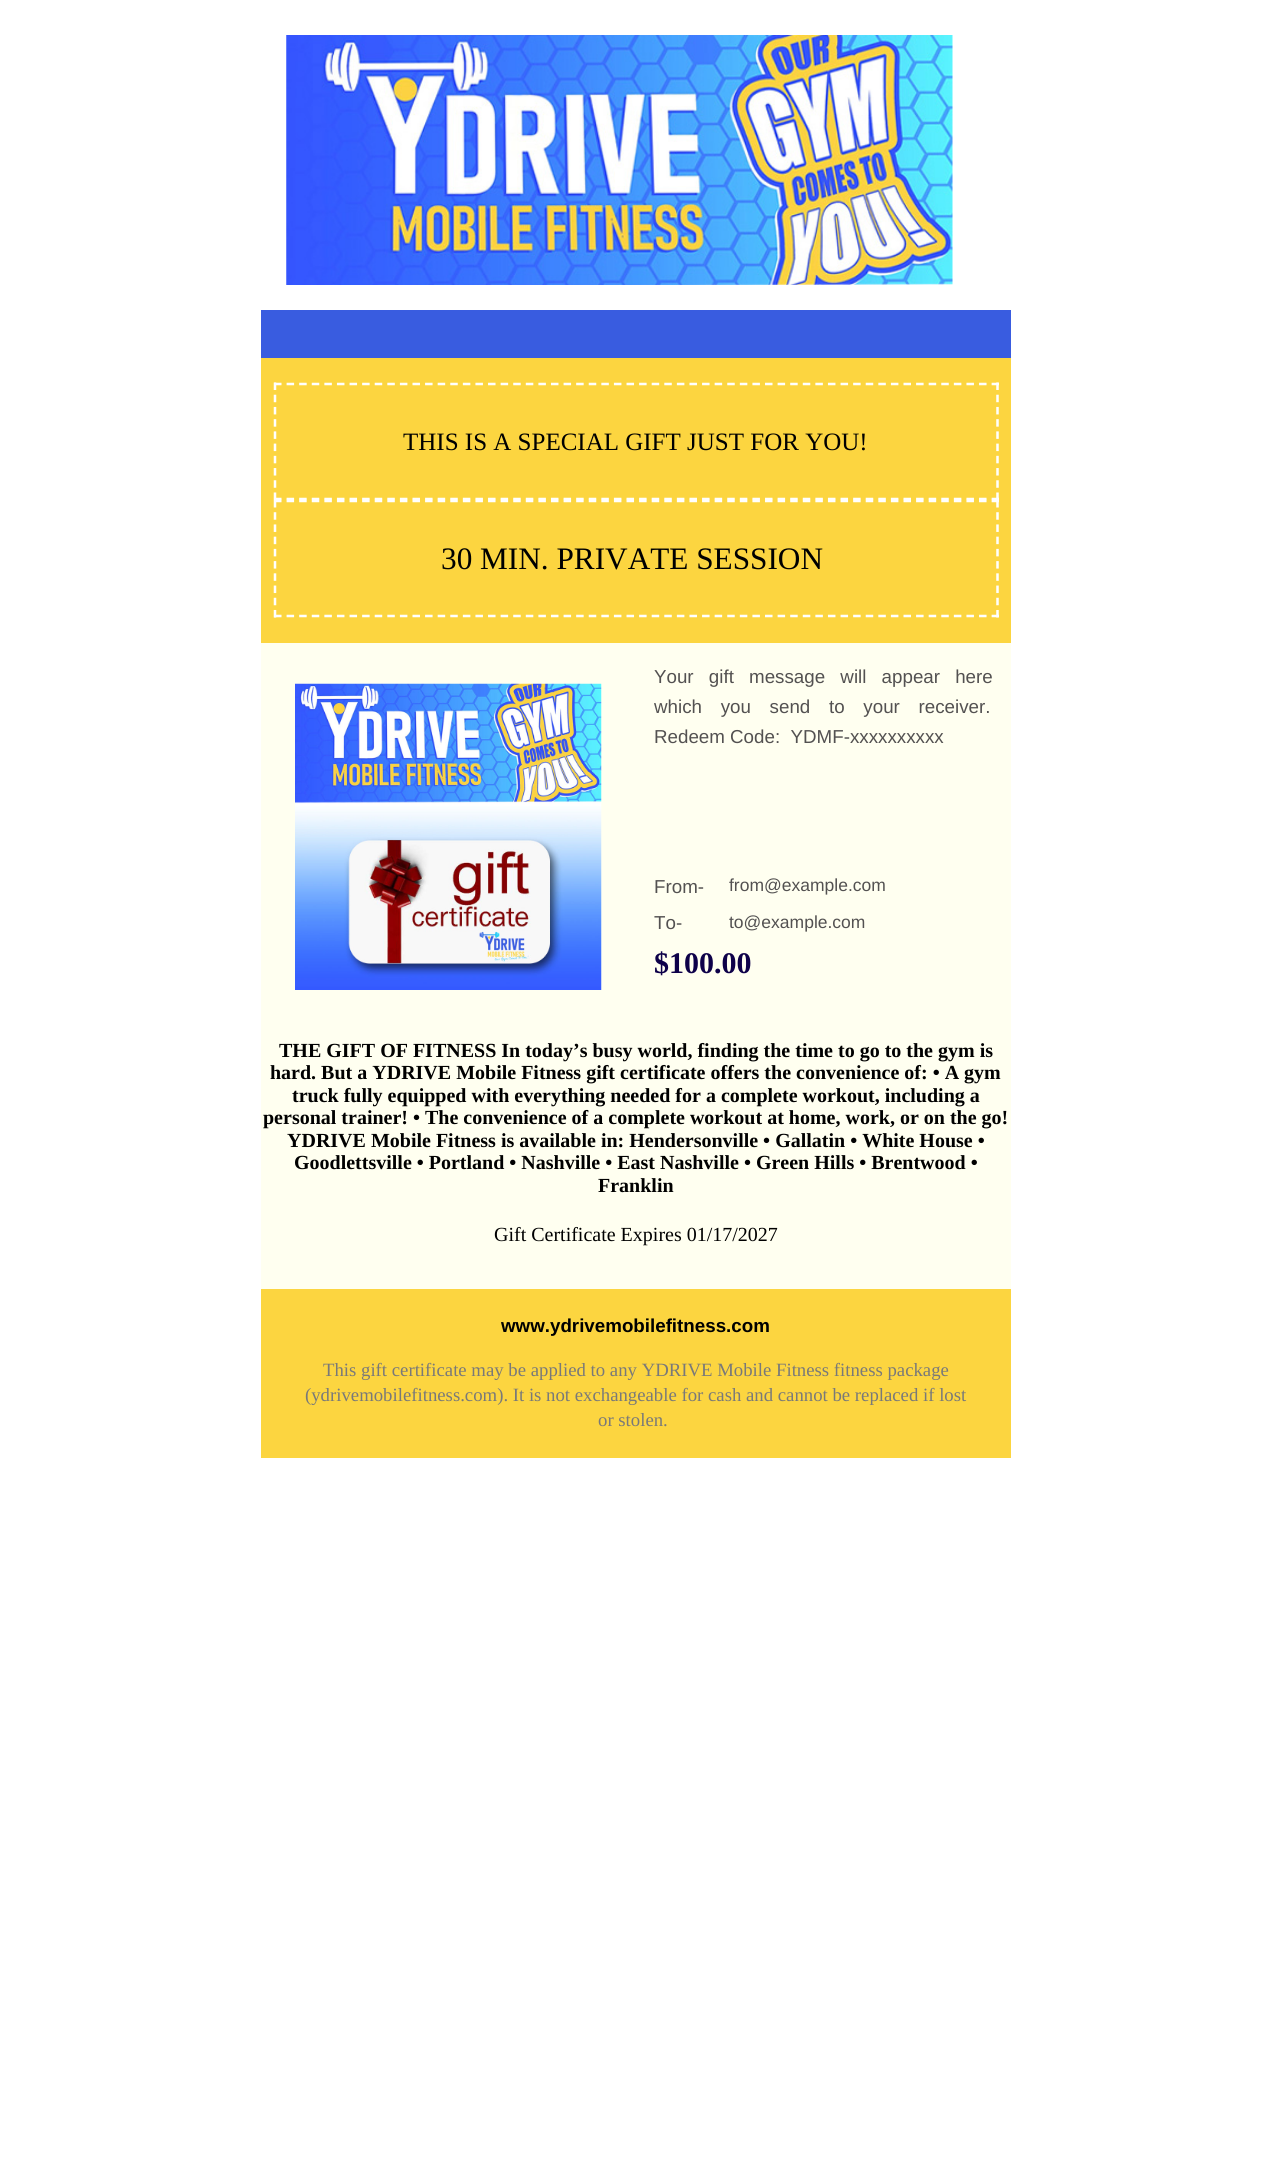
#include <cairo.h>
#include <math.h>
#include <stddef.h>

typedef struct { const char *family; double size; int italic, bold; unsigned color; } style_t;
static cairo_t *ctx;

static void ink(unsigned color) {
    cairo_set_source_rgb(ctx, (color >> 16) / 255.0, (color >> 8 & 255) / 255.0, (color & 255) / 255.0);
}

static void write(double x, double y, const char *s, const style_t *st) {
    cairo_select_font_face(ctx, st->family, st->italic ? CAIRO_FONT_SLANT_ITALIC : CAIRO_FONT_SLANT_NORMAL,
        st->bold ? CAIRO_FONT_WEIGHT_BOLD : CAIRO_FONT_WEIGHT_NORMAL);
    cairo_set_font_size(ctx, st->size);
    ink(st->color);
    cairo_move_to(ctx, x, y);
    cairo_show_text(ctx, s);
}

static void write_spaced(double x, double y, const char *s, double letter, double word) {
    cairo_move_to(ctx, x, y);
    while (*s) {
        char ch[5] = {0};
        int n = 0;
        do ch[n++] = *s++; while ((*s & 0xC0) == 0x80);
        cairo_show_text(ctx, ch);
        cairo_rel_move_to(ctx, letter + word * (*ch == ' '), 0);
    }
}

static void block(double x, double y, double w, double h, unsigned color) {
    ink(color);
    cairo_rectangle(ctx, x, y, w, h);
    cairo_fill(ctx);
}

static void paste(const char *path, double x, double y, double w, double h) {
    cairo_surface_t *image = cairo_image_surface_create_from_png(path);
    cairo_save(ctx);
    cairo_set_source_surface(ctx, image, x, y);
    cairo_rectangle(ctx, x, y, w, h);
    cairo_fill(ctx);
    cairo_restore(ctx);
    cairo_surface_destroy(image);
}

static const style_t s1 = {"Liberation Serif", 25, 0, 0, 0x000000};
static const style_t s2 = {"Liberation Serif", 31.25, 0, 0, 0x000000};
static const style_t s3 = {"Liberation Sans", 18.75, 0, 0, 0x535151};
static const style_t s4 = {"Liberation Sans", 17.5, 0, 0, 0x535151};
static const style_t s5 = {"Liberation Serif", 30, 0, 1, 0x0e0149};
static const style_t s6 = {"Liberation Serif", 20, 0, 1, 0x000000};
static const style_t s7 = {"Liberation Serif", 20, 0, 0, 0x000000};
static const style_t s8 = {"Liberation Sans", 18.75, 0, 1, 0x000000};
static const style_t s9 = {"Liberation Serif", 18.75, 0, 0, 0x797979};

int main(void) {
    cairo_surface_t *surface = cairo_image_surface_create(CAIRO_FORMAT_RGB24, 1271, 2174);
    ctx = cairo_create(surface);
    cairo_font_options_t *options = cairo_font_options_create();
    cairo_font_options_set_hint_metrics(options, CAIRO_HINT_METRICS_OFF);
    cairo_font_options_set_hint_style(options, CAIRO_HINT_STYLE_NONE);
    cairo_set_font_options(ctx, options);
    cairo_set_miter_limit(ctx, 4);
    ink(0xffffff);
    cairo_paint(ctx);
    paste("pic1.png", 286, 35, 667, 250);
    block(261, 310, 750, 48, 0x395ce0);
    block(261, 358, 750, 285, 0xfcd540);
    cairo_new_path(ctx);
    cairo_move_to(ctx, 274, 384);
    cairo_line_to(ctx, 999, 384);
    ink(0xffffff);
    cairo_set_line_width(ctx, 2.5);
    cairo_set_dash(ctx, (double[]){7.5, 5.09}, 2, 0);
    cairo_stroke(ctx);
    cairo_new_path(ctx);
    cairo_move_to(ctx, 997.5, 382.5);
    cairo_line_to(ctx, 997.5, 500);
    cairo_set_dash(ctx, (double[]){7.5, 4.72}, 2, 0);
    cairo_stroke(ctx);
    cairo_new_path(ctx);
    cairo_move_to(ctx, 274, 499);
    cairo_line_to(ctx, 999, 499);
    cairo_set_dash(ctx, (double[]){7.5, 5.09}, 2, 0);
    cairo_stroke(ctx);
    cairo_new_path(ctx);
    cairo_move_to(ctx, 275, 382.5);
    cairo_line_to(ctx, 275, 500);
    cairo_set_dash(ctx, (double[]){7.5, 4.72}, 2, 0);
    cairo_stroke(ctx);
    write(403, 450, "THIS IS A SPECIAL GIFT JUST FOR YOU!", &s1);
    block(274, 500, 725, 1, 0xfcd540);
    cairo_new_path(ctx);
    cairo_move_to(ctx, 274, 501);
    cairo_line_to(ctx, 999, 501);
    ink(0xffffff);
    cairo_set_dash(ctx, (double[]){7.5, 5.09}, 2, 0);
    cairo_stroke(ctx);
    cairo_new_path(ctx);
    cairo_move_to(ctx, 997.5, 500);
    cairo_line_to(ctx, 997.5, 617.5);
    cairo_set_dash(ctx, (double[]){7.5, 4.72}, 2, 0);
    cairo_stroke(ctx);
    cairo_new_path(ctx);
    cairo_move_to(ctx, 274, 616);
    cairo_line_to(ctx, 999, 616);
    cairo_set_dash(ctx, (double[]){7.5, 5.09}, 2, 0);
    cairo_stroke(ctx);
    cairo_new_path(ctx);
    cairo_move_to(ctx, 275, 500);
    cairo_line_to(ctx, 275, 617.5);
    cairo_set_dash(ctx, (double[]){7.5, 4.72}, 2, 0);
    cairo_stroke(ctx);
    write(441, 569, "30 MIN. PRIVATE SESSION", &s2);
    block(261, 643, 750, 646, 0xfffff0);
    paste("pic2.png", 295, 683, 307, 307);
    cairo_select_font_face(ctx, "Liberation Sans", CAIRO_FONT_SLANT_NORMAL, CAIRO_FONT_WEIGHT_NORMAL);
    cairo_set_font_size(ctx, 18.75);
    ink(0x535151);
    write_spaced(654, 683, "Your gift message will appear here", 0, 10);
    write_spaced(654, 713, "which you send to your receiver.", 0, 13.5);
    write(654, 743, "Redeem Code:  YDMF-xxxxxxxxxx", &s3);
    write(654, 893, "From-", &s3);
    write(729, 891, "from@example.com", &s4);
    write(654, 929, "To-", &s3);
    write(729, 928, "to@example.com", &s4);
    write(654, 973, "$100.00", &s5);
    write(279, 1057, "THE GIFT OF FITNESS In today’s busy world, finding the time to go to the gym is", &s6);
    write(270, 1079, "hard. But a YDRIVE Mobile Fitness gift certificate offers the convenience of: • A gym", &s6);
    write(292, 1102, "truck fully equipped with everything needed for a complete workout, including a", &s6);
    write(263, 1124, "personal trainer! • The convenience of a complete workout at home, work, or on the go!", &s6);
    write(287, 1147, "YDRIVE Mobile Fitness is available in: Hendersonville • Gallatin • White House •", &s6);
    write(294, 1169, "Goodlettsville • Portland • Nashville • East Nashville • Green Hills • Brentwood •", &s6);
    write(598, 1192, "Franklin", &s6);
    write(494, 1241, "Gift Certificate Expires 01/17/2027", &s7);
    block(261, 1289, 750, 169, 0xfcd540);
    write(501, 1332, "www.ydrivemobilefitness.com", &s8);
    write(323, 1376, "This gift certificate may be applied to any YDRIVE Mobile Fitness fitness package", &s9);
    write(305, 1401, "(ydrivemobilefitness.com). It is not exchangeable for cash and cannot be replaced if lost", &s9);
    write(598, 1426, "or stolen.", &s9);
    cairo_surface_write_to_png(surface, "screenshot.png");
    cairo_font_options_destroy(options);
    cairo_destroy(ctx);
    cairo_surface_destroy(surface);
    return 0;
}
